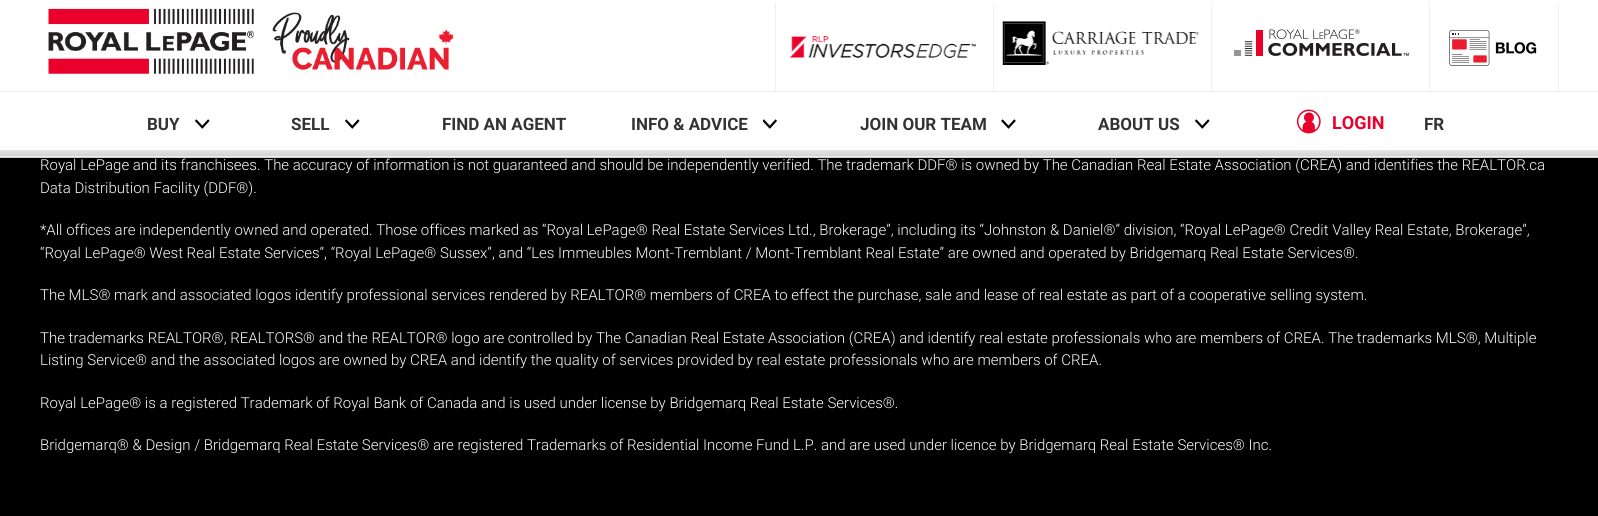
#include <cairo.h>
#include <math.h>
#include <stddef.h>

typedef struct { const char *family; double size; int italic, bold; unsigned color; } style_t;
static cairo_t *ctx;

static void ink(unsigned color) {
    cairo_set_source_rgb(ctx, (color >> 16) / 255.0, (color >> 8 & 255) / 255.0, (color & 255) / 255.0);
}

static void write(double x, double y, const char *s, const style_t *st) {
    cairo_select_font_face(ctx, st->family, st->italic ? CAIRO_FONT_SLANT_ITALIC : CAIRO_FONT_SLANT_NORMAL,
        st->bold ? CAIRO_FONT_WEIGHT_BOLD : CAIRO_FONT_WEIGHT_NORMAL);
    cairo_set_font_size(ctx, st->size);
    ink(st->color);
    cairo_move_to(ctx, x, y);
    cairo_show_text(ctx, s);
}

static void block(double x, double y, double w, double h, unsigned color) {
    ink(color);
    cairo_rectangle(ctx, x, y, w, h);
    cairo_fill(ctx);
}

static void paste(const char *path, double x, double y, double w, double h) {
    cairo_surface_t *image = cairo_image_surface_create_from_png(path);
    cairo_save(ctx);
    cairo_set_source_surface(ctx, image, x, y);
    cairo_rectangle(ctx, x, y, w, h);
    cairo_fill(ctx);
    cairo_restore(ctx);
    cairo_surface_destroy(image);
}

static const style_t s1 = {"Roboto", 17, 0, 1, 0x333333};
static const style_t s2 = {"Roboto", 18, 0, 1, 0xea002a};
static const style_t s3 = {"Roboto Light", 15, 0, 0, 0xfbfbfb};

int main(void) {
    cairo_surface_t *surface = cairo_image_surface_create(CAIRO_FORMAT_RGB24, 1598, 516);
    ctx = cairo_create(surface);
    cairo_font_options_t *options = cairo_font_options_create();
    cairo_font_options_set_hint_metrics(options, CAIRO_HINT_METRICS_OFF);
    cairo_font_options_set_hint_style(options, CAIRO_HINT_STYLE_NONE);
    cairo_set_font_options(ctx, options);
    cairo_set_miter_limit(ctx, 4);
    cairo_pattern_t *gradient;
    ink(0x000000);
    cairo_paint(ctx);
    gradient = cairo_pattern_create_linear(799, 0, 799, 158);
    cairo_pattern_add_color_stop_rgba(gradient, 0, 1, 1, 1, 1);
    cairo_pattern_add_color_stop_rgba(gradient, 0.95, 1, 1, 1, 1);
    cairo_pattern_add_color_stop_rgba(gradient, 0.95, 1, 1, 1, 0.9);
    cairo_pattern_add_color_stop_rgba(gradient, 1, 1, 1, 1, 0.8);
    cairo_set_source(ctx, gradient);
    cairo_pattern_destroy(gradient);
    cairo_rectangle(ctx, 0, 0, 1598, 158);
    cairo_fill(ctx);
    paste("pic1.png", 48, 8, 406, 66);
    block(775, 3, 1, 88, 0xeeeeee);
    paste("pic2.png", 789, 36, 187, 22);
    block(993, 3, 1, 88, 0xeeeeee);
    paste("pic3.png", 1002, 21, 197, 44);
    block(1211, 3, 1, 88, 0xeeeeee);
    paste("pic4.png", 1234, 29, 175, 27);
    block(1558, 3, 1, 88, 0xeeeeee);
    block(1429, 3, 1, 88, 0xeeeeee);
    paste("pic5.png", 1449, 30, 88, 36);
    block(0, 91, 1598, 1, 0xeeeeee);
    block(0, 156, 1598, 1, 0xeeeeee);
    write(147, 130, "BUY", &s1);
    paste("pic6.png", 195, 119, 15, 10);
    write(291, 130, "SELL", &s1);
    paste("pic6.png", 345, 119, 15, 10);
    write(442, 130, "FIND AN AGENT", &s1);
    write(631, 130, "INFO & ADVICE", &s1);
    paste("pic7.png", 763, 119, 14, 10);
    write(860, 130, "JOIN OUR TEAM", &s1);
    paste("pic8.png", 1001, 119, 15, 10);
    write(1098, 130, "ABOUT US", &s1);
    paste("pic6.png", 1195, 119, 15, 10);
    paste("pic9.png", 1296, 109, 25, 25);
    write(1332, 129, "LOGIN", &s2);
    write(1424, 130, "FR", &s1);
    write(40, 170, "Royal LePage and its franchisees. The accuracy of information is not guaranteed and should be independently verified. The trademark DDF® is owned by The Canadian Real Estate Association (CREA) and identifies the REALTOR.ca", &s3);
    write(40, 193, "Data Distribution Facility (DDF®).", &s3);
    write(40, 235, "*All offices are independently owned and operated. Those offices marked as “Royal LePage® Real Estate Services Ltd., Brokerage”, including its “Johnston & Daniel®” division, “Royal LePage® Credit Valley Real Estate, Brokerage”,", &s3);
    write(40, 258, "“Royal LePage® West Real Estate Services”, “Royal LePage® Sussex”, and “Les Immeubles Mont-Tremblant / Mont-Tremblant Real Estate” are owned and operated by Bridgemarq Real Estate Services®.", &s3);
    write(40, 300, "The MLS® mark and associated logos identify professional services rendered by REALTOR® members of CREA to effect the purchase, sale and lease of real estate as part of a cooperative selling system.", &s3);
    write(40, 343, "The trademarks REALTOR®, REALTORS® and the REALTOR® logo are controlled by The Canadian Real Estate Association (CREA) and identify real estate professionals who are members of CREA. The trademarks MLS®, Multiple", &s3);
    write(40, 365, "Listing Service® and the associated logos are owned by CREA and identify the quality of services provided by real estate professionals who are members of CREA.", &s3);
    write(40, 408, "Royal LePage® is a registered Trademark of Royal Bank of Canada and is used under license by Bridgemarq Real Estate Services®.", &s3);
    write(40, 450, "Bridgemarq® & Design / Bridgemarq Real Estate Services® are registered Trademarks of Residential Income Fund L.P. and are used under licence by Bridgemarq Real Estate Services® Inc.", &s3);
    cairo_surface_write_to_png(surface, "screenshot.png");
    cairo_font_options_destroy(options);
    cairo_destroy(ctx);
    cairo_surface_destroy(surface);
    return 0;
}
